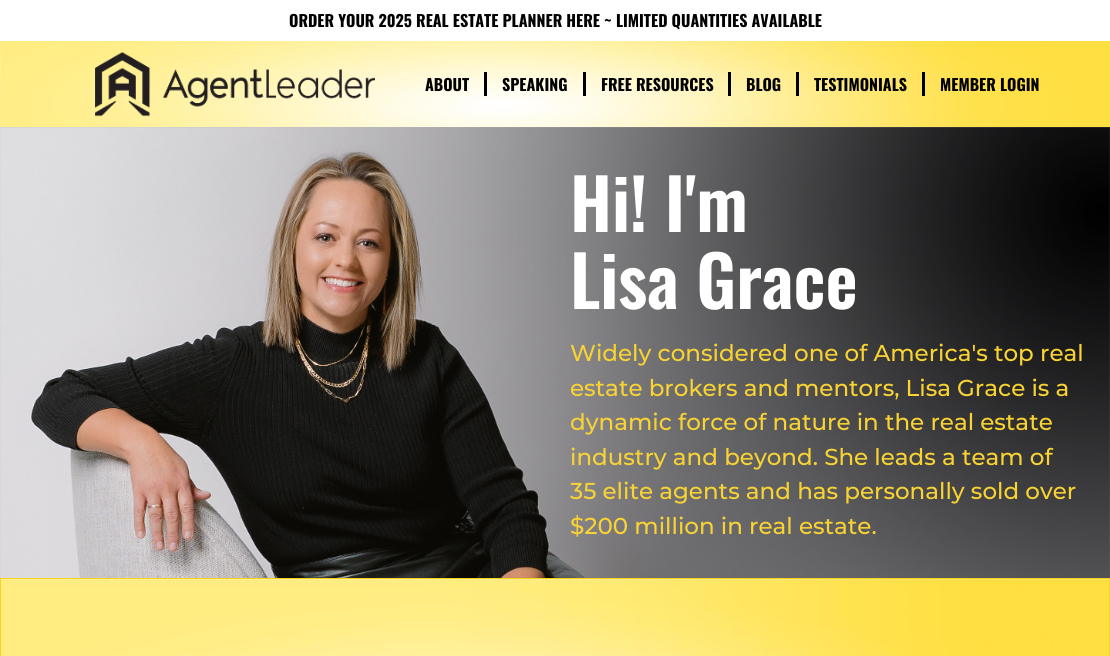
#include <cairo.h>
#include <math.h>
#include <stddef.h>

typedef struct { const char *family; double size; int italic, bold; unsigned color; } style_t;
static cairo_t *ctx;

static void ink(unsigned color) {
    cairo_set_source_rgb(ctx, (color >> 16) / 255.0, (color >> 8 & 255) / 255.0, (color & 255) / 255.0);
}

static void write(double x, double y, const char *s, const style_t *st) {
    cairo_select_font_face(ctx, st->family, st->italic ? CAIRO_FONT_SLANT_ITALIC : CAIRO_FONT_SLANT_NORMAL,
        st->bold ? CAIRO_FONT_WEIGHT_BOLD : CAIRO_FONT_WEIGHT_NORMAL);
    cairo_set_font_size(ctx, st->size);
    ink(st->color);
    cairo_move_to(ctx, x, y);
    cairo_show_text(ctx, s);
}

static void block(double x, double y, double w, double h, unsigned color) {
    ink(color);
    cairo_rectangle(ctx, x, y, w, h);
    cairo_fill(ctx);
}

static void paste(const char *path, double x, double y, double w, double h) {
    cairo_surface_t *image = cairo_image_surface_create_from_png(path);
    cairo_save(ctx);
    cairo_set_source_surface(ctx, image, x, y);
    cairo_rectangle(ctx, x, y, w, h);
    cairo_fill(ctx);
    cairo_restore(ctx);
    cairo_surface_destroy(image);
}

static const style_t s1 = {"Oswald", 16, 0, 1, 0x000000};
static const style_t s2 = {"Oswald SemiBold", 70, 0, 0, 0xffffff};
static const style_t s3 = {"Montserrat Medium", 23, 0, 0, 0xf9d332};

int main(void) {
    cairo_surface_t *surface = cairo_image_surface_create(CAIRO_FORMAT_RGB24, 1110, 656);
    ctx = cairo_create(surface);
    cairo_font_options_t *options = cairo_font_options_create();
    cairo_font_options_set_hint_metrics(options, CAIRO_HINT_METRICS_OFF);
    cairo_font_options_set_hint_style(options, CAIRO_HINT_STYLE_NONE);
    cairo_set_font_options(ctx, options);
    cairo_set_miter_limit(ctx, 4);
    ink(0xffffff);
    cairo_paint(ctx);
    write(289, 27, "ORDER YOUR 2025 REAL ESTATE PLANNER HERE ~ LIMITED QUANTITIES AVAILABLE", &s1);
    paste("pic1.png", 0, 41, 1110, 86);
    paste("pic2.png", 95, 52, 280, 65);
    block(484, 72, 3, 24, 0x000000);
    write(425, 91, "ABOUT", &s1);
    block(583, 72, 3, 24, 0x000000);
    write(502, 91, "SPEAKING", &s1);
    block(728, 72, 3, 24, 0x000000);
    write(601, 91, "FREE RESOURCES", &s1);
    block(796, 72, 3, 24, 0x000000);
    write(746, 91, "BLOG", &s1);
    block(922, 72, 3, 24, 0x000000);
    write(814, 91, "TESTIMONIALS", &s1);
    write(940, 91, "MEMBER LOGIN", &s1);
    paste("pic3.png", 0, 127, 1110, 451);
    write(570, 232, "Hi! I'm", &s2);
    write(570, 309, "Lisa Grace", &s2);
    write(570, 361, "Widely considered one of America's top real", &s3);
    write(570, 396, "estate brokers and mentors, Lisa Grace is a", &s3);
    write(570, 430, "dynamic force of nature in the real estate", &s3);
    write(570, 465, "industry and beyond. She leads a team of", &s3);
    write(570, 499, "35 elite agents and has personally sold over", &s3);
    write(570, 534, "$200 million in real estate.", &s3);
    block(0, 578, 1110, 78, 0xf7d21c);
    paste("pic4.png", 1, 579, 1108, 77);
    cairo_surface_write_to_png(surface, "screenshot.png");
    cairo_font_options_destroy(options);
    cairo_destroy(ctx);
    cairo_surface_destroy(surface);
    return 0;
}
